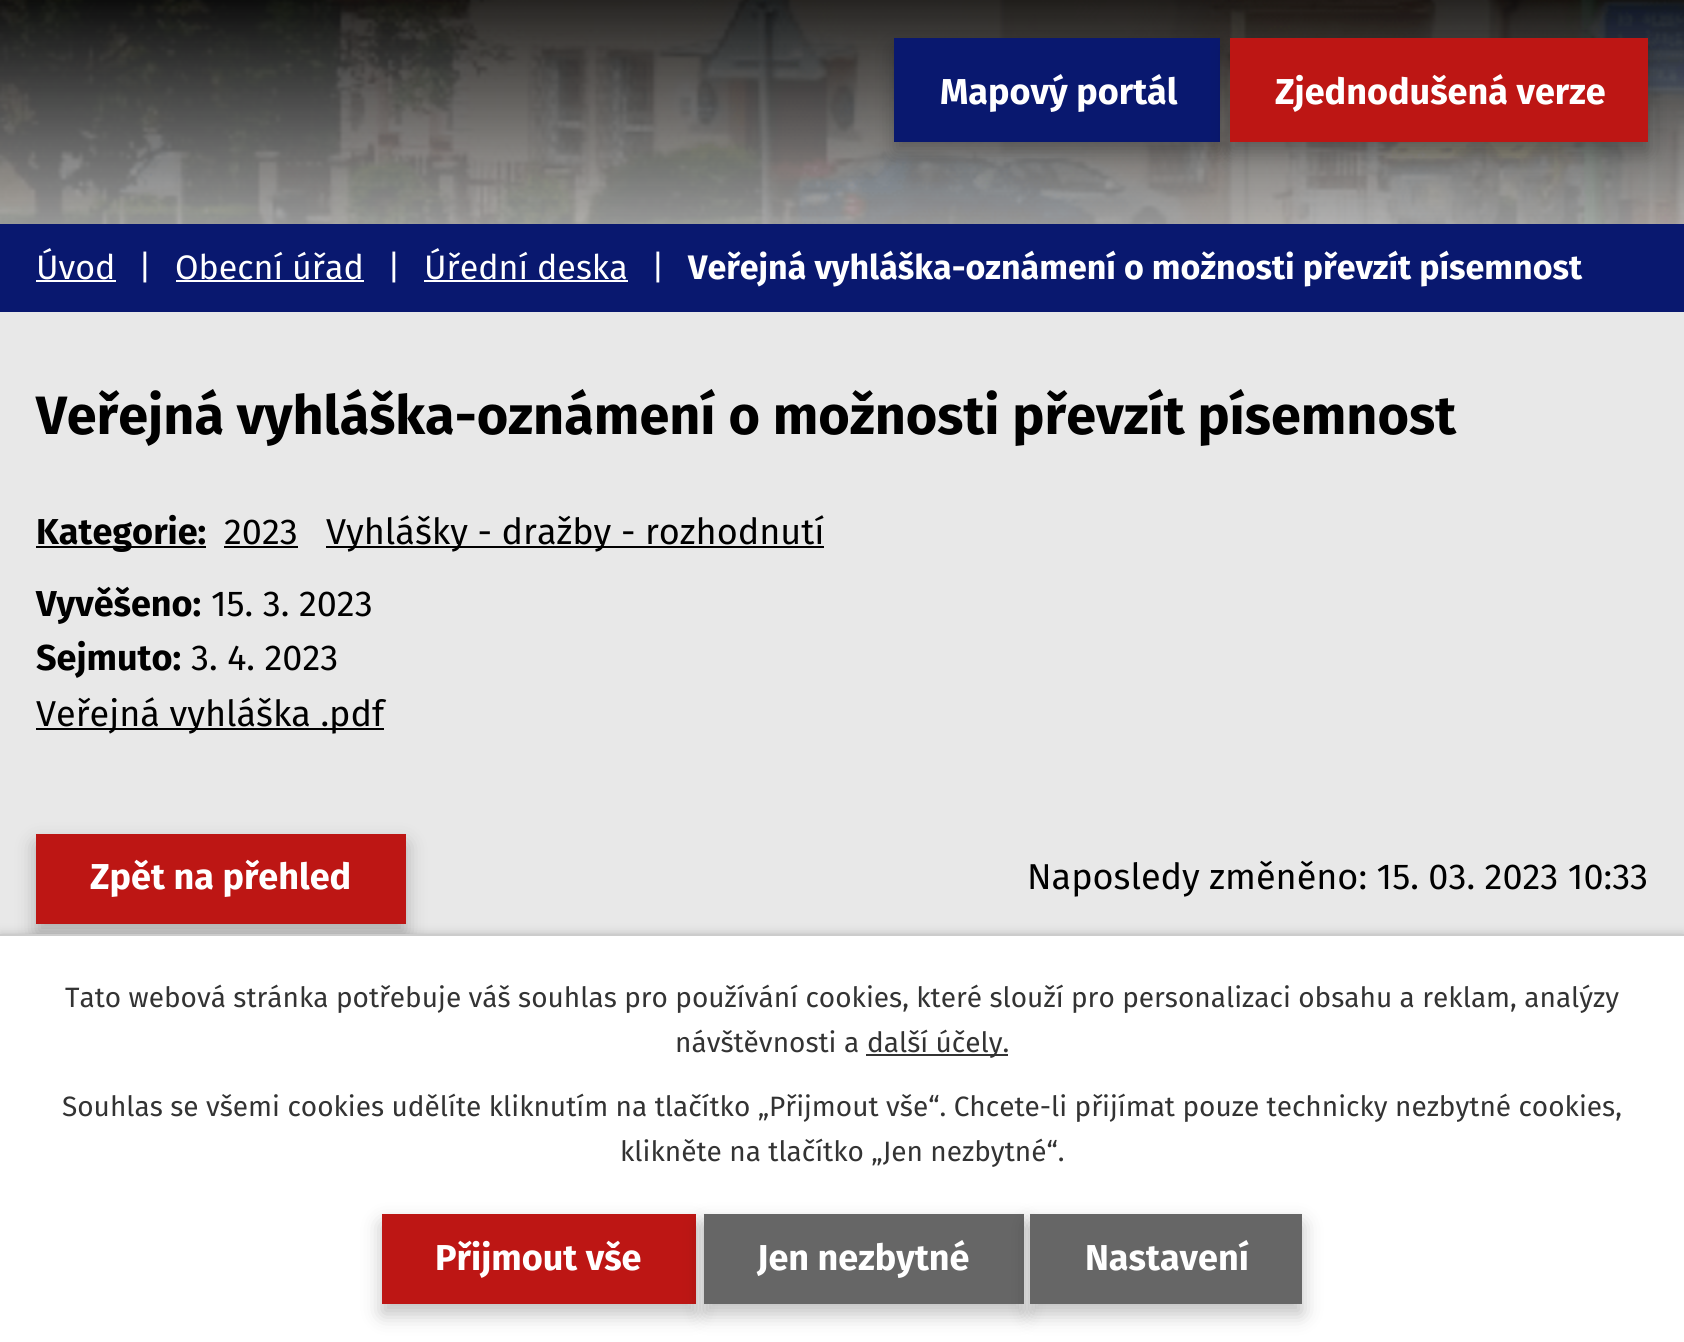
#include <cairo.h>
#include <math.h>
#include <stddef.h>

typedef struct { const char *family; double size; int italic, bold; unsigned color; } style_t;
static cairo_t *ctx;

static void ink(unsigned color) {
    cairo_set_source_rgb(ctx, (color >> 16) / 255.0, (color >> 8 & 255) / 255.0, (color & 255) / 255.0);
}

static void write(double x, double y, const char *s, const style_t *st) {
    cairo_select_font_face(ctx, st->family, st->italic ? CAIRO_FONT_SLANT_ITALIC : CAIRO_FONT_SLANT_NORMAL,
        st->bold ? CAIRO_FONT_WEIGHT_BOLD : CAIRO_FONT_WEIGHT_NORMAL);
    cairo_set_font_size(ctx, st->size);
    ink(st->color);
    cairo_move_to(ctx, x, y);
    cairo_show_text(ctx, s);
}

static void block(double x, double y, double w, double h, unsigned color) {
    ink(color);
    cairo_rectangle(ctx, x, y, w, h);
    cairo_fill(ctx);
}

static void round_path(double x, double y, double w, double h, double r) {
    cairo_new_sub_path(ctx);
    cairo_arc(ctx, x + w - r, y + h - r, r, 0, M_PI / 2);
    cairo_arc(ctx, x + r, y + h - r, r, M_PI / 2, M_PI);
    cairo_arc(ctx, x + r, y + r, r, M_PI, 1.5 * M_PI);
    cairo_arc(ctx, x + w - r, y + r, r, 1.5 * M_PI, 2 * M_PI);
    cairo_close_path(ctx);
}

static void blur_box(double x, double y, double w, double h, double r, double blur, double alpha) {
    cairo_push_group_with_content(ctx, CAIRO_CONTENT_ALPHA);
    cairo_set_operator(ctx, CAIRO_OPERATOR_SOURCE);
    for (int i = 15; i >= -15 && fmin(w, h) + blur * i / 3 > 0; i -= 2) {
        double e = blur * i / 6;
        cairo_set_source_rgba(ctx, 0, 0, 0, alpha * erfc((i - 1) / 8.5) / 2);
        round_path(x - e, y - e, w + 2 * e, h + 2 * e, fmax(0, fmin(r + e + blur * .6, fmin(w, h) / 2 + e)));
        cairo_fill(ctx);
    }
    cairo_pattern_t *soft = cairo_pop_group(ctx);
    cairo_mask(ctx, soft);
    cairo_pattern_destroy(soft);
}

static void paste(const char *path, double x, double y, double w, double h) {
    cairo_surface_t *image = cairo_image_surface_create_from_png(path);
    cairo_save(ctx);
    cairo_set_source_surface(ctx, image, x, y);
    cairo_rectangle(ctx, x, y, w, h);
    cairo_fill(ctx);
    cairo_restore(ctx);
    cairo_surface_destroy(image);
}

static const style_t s1 = {"Fira Sans", 36, 0, 1, 0xffffff};
static const style_t s2 = {"Fira Sans", 34, 0, 0, 0xffffff};
static const style_t s3 = {"Fira Sans", 34, 0, 1, 0xffffff};
static const style_t s4 = {"Fira Sans", 54, 0, 1, 0x000000};
static const style_t s5 = {"Fira Sans", 36, 0, 1, 0x000000};
static const style_t s6 = {"Fira Sans", 36, 0, 0, 0x000000};
static const style_t s7 = {"Fira Sans", 28, 0, 0, 0x333333};

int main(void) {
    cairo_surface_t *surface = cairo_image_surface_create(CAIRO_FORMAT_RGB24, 1684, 1342);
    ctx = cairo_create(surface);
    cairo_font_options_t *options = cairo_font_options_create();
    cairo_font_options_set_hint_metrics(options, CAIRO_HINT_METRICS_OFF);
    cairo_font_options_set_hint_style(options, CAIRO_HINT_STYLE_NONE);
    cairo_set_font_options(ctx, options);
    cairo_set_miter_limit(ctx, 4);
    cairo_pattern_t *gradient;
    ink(0x09186f);
    cairo_paint(ctx);
    gradient = cairo_pattern_create_linear(842, -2, 842, 224);
    cairo_pattern_add_color_stop_rgba(gradient, 0, 0.051, 0.051, 0.051, 1);
    cairo_pattern_add_color_stop_rgba(gradient, 1, 0.659, 0.659, 0.659, 1);
    cairo_set_source(ctx, gradient);
    cairo_pattern_destroy(gradient);
    cairo_rectangle(ctx, 0, 0, 1684, 224);
    cairo_fill(ctx);
    paste("pic1.png", 0, 0, 1684, 224);
    ink(0x000000);
    blur_box(894, 48, 326, 104, 0, 10, 0.25);
    block(894, 38, 326, 104, 0x09186f);
    write(940, 104, "Mapový portál", &s1);
    ink(0x000000);
    blur_box(1230, 48, 418, 104, 0, 10, 0.25);
    block(1230, 38, 418, 104, 0xbd1614);
    write(1275, 104, "Zjednodušená verze", &s1);
    write(36, 279, "Úvod", &s2);
    block(36, 280, 80, 2, 0xffffff);
    write(138, 279, "|", &s2);
    write(175, 279, "Obecní úřad", &s2);
    block(176, 280, 188, 2, 0xffffff);
    write(387, 279, "|", &s2);
    write(424, 279, "Úřední deska", &s2);
    block(424, 280, 204, 2, 0xffffff);
    write(651, 279, "|", &s2);
    write(688, 279, "Veřejná vyhláška-oznámení o možnosti převzít písemnost", &s3);
    block(0, 312, 1684, 622, 0xe8e8e8);
    write(36, 434, "Veřejná vyhláška-oznámení o možnosti převzít písemnost", &s4);
    block(36, 546, 170, 2, 0x000000);
    write(36, 544, "Kategorie:", &s5);
    write(224, 544, "2023", &s6);
    block(224, 546, 74, 2, 0x000000);
    block(326, 546, 498, 2, 0x000000);
    write(326, 544, "Vyhlášky - dražby - rozhodnutí", &s6);
    write(36, 616, "Vyvěšeno:", &s5);
    write(211, 616, "15. 3. 2023", &s6);
    write(36, 670, "Sejmuto:", &s5);
    write(191, 670, "3. 4. 2023", &s6);
    block(36, 728, 348, 2, 0x000000);
    write(36, 726, "Veřejná vyhláška .pdf", &s6);
    ink(0x000000);
    blur_box(36, 844, 370, 90, 0, 10, 0.25);
    block(36, 834, 370, 90, 0xbd1614);
    write(90, 889, "Zpět na přehled", &s1);
    write(1027, 889, "Naposledy změněno: 15. 03. 2023 10:33", &s6);
    ink(0x000000);
    blur_box(0, 934, 1684, 408, 0, 5, 0.2);
    block(0, 936, 1684, 406, 0xffffff);
    block(0, 934, 1684, 2, 0xcccccc);
    write(65, 1007, "Tato webová stránka potřebuje váš souhlas pro používání cookies, které slouží pro personalizaci obsahu a reklam, analýzy", &s7);
    write(675, 1052, "návštěvnosti a", &s7);
    block(866, 1054, 142, 2, 0x333333);
    write(867, 1052, "další účely.", &s7);
    write(62, 1116, "Souhlas se všemi cookies udělíte kliknutím na tlačítko „Přijmout vše“. Chcete-li přijímat pouze technicky nezbytné cookies,", &s7);
    write(620, 1161, "klikněte na tlačítko „Jen nezbytné“.", &s7);
    ink(0x000000);
    blur_box(382, 1224, 314, 90, 0, 10, 0.25);
    block(382, 1214, 314, 90, 0xbd1614);
    write(435, 1270, "Přijmout vše", &s1);
    ink(0x000000);
    blur_box(704, 1224, 320, 90, 0, 10, 0.25);
    block(704, 1214, 320, 90, 0x666666);
    write(757, 1270, "Jen nezbytné", &s1);
    ink(0x000000);
    blur_box(1030, 1224, 272, 90, 0, 10, 0.25);
    block(1030, 1214, 272, 90, 0x666666);
    write(1085, 1270, "Nastavení", &s1);
    cairo_surface_write_to_png(surface, "screenshot.png");
    cairo_font_options_destroy(options);
    cairo_destroy(ctx);
    cairo_surface_destroy(surface);
    return 0;
}
